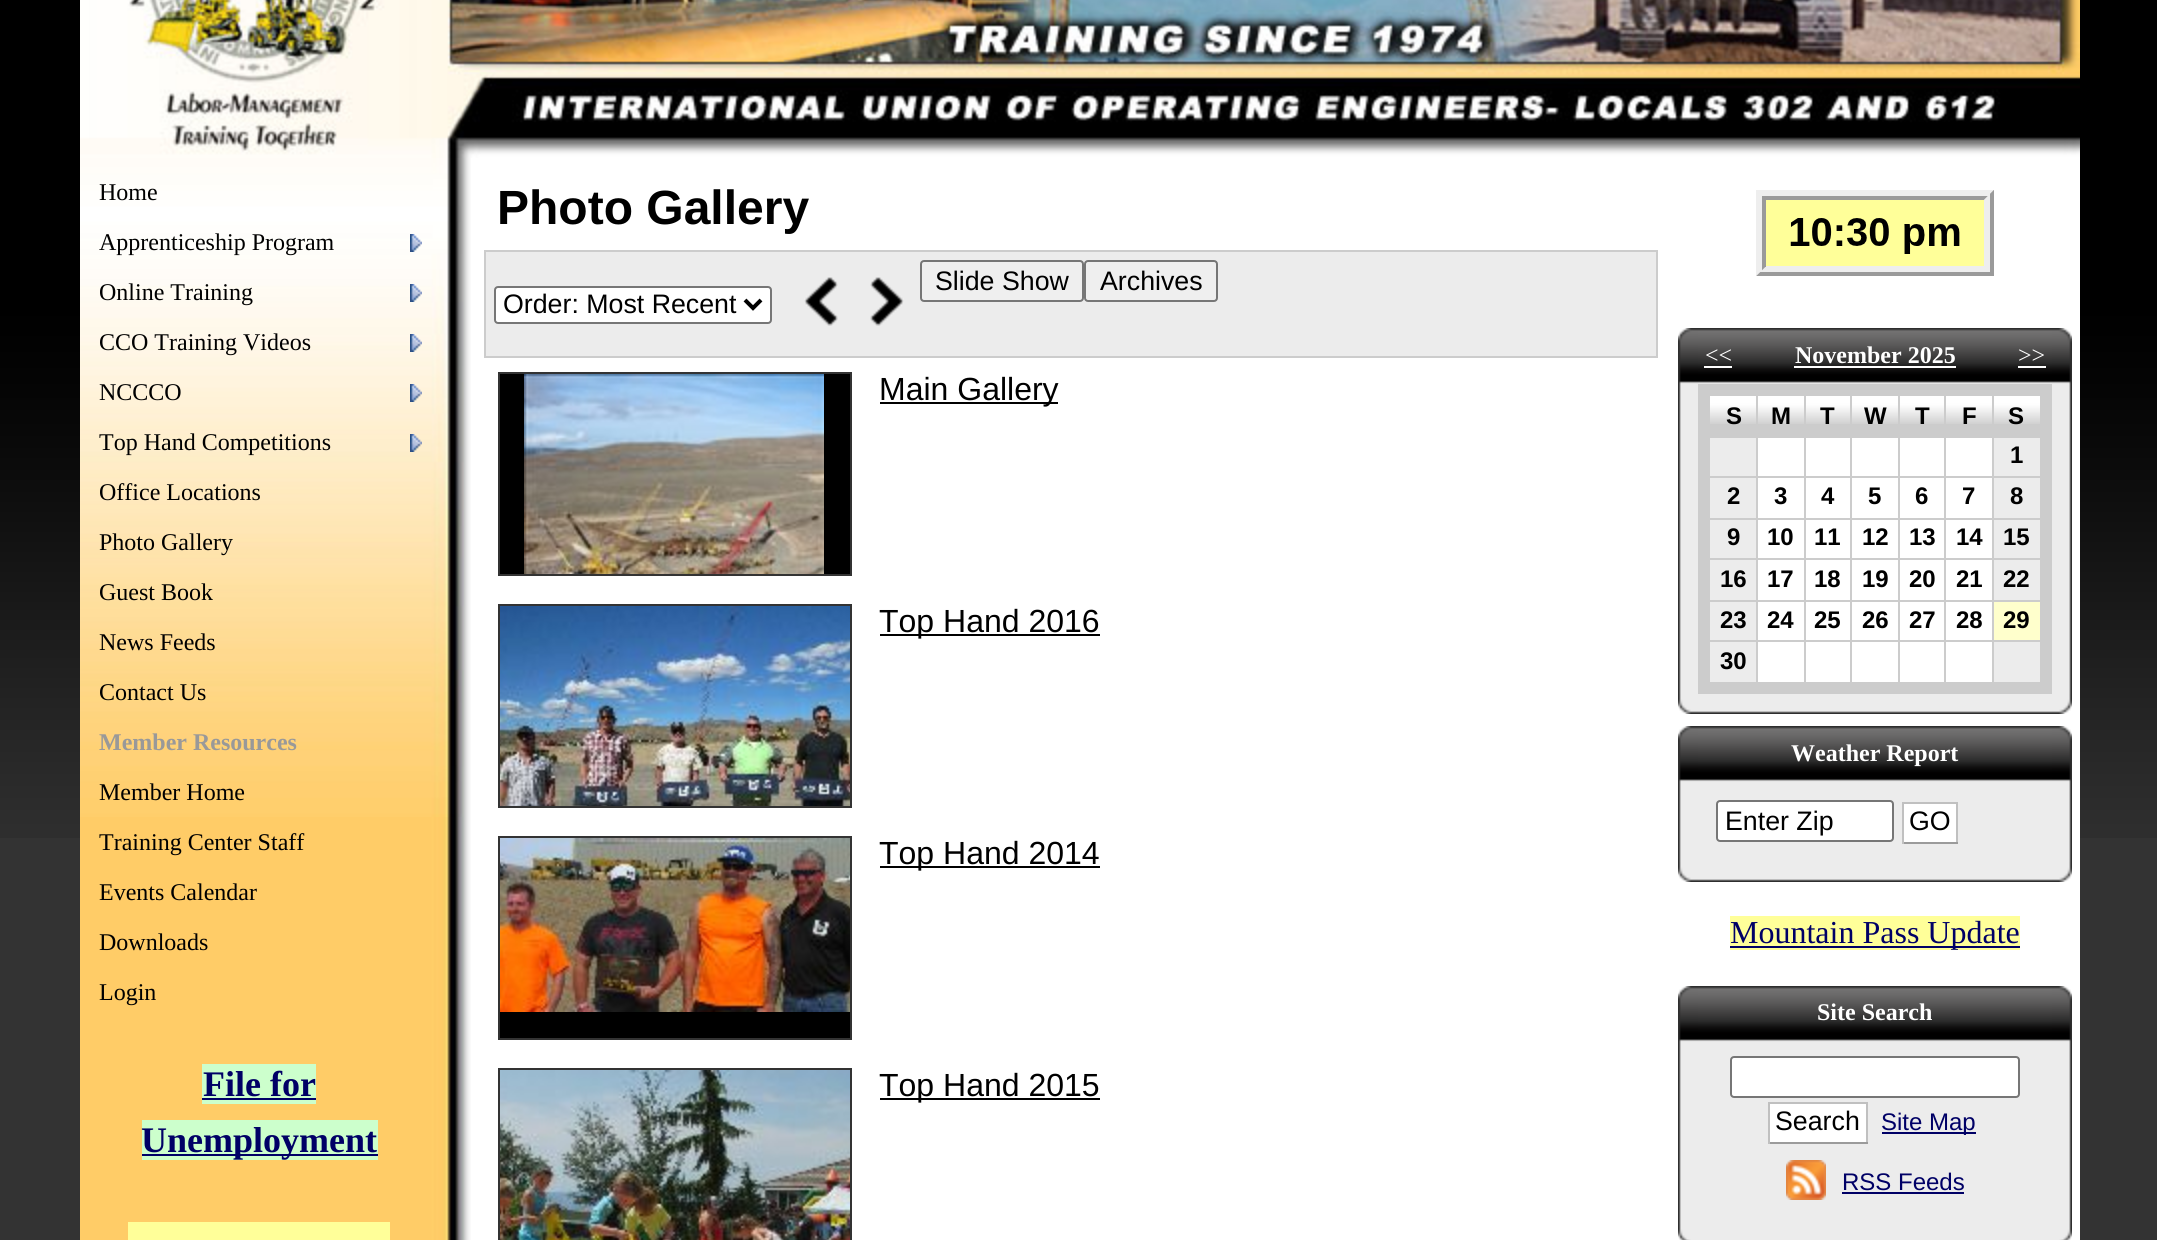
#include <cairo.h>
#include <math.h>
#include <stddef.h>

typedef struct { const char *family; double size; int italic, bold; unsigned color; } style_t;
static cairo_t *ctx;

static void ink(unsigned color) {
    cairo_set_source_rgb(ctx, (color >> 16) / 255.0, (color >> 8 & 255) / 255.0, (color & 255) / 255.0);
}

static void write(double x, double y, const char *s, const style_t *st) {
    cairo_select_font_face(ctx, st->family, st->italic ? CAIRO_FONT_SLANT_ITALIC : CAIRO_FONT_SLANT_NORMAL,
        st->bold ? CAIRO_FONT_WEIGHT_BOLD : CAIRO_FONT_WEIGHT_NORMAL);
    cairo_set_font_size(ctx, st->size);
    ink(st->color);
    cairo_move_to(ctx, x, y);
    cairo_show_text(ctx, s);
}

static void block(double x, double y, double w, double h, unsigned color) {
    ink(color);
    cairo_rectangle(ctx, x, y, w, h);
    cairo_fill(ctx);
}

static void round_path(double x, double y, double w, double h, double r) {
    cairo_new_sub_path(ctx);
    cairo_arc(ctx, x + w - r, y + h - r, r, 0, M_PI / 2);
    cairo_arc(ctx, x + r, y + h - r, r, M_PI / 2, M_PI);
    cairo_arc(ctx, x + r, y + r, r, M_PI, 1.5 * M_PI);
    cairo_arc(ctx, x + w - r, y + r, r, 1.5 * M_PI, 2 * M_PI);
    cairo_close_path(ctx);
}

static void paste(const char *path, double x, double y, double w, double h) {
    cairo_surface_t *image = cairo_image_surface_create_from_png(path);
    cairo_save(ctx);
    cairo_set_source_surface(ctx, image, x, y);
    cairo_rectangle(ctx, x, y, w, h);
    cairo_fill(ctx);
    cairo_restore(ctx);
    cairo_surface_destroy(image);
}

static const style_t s1 = {"Liberation Serif", 24, 0, 0, 0x000000};
static const style_t s2 = {"Liberation Serif", 24, 0, 1, 0x999999};
static const style_t s3 = {"Liberation Serif", 36, 0, 1, 0x000066};
static const style_t s4 = {"Liberation Sans", 48, 0, 1, 0x000000};
static const style_t s5 = {"Liberation Sans", 26.75, 0, 0, 0x000000};
static const style_t s6 = {"Liberation Sans", 32, 0, 0, 0x000000};
static const style_t s7 = {"Liberation Serif", 24, 0, 0, 0xffffff};
static const style_t s8 = {"Liberation Serif", 24, 0, 1, 0xffffff};
static const style_t s9 = {"Liberation Sans", 24, 0, 1, 0x000000};
static const style_t s10 = {"Liberation Serif", 32, 0, 0, 0x000066};
static const style_t s11 = {"Liberation Sans", 24, 0, 0, 0x000066};

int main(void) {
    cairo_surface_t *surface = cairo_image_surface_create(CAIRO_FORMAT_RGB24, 2157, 1240);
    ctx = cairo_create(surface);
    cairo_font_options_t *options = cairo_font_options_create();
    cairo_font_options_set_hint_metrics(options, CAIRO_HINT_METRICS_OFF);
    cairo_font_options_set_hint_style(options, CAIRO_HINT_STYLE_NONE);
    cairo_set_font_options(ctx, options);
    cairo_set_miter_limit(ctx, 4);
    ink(0x333333);
    cairo_paint(ctx);
    paste("pic1.png", 0, 0, 2157, 838);
    paste("pic2.png", 80, 0, 2000, 158);
    block(471, 158, 1609, 1082, 0xffffff);
    paste("pic3.png", 80, 158, 391, 1082);
    paste("pic4.png", 80, 158, 384, 659);
    write(99, 200, "Home", &s1);
    paste("pic5.png", 410, 234, 12, 18);
    write(99, 250, "Apprenticeship Program", &s1);
    paste("pic6.png", 410, 284, 12, 18);
    write(99, 300, "Online Training", &s1);
    paste("pic7.png", 410, 334, 12, 18);
    write(99, 350, "CCO Training Videos", &s1);
    paste("pic8.png", 410, 384, 12, 18);
    write(99, 400, "NCCCO", &s1);
    paste("pic9.png", 410, 434, 12, 18);
    write(99, 450, "Top Hand Competitions", &s1);
    write(99, 500, "Office Locations", &s1);
    write(99, 550, "Photo Gallery", &s1);
    write(99, 600, "Guest Book", &s1);
    write(99, 650, "News Feeds", &s1);
    write(99, 700, "Contact Us", &s1);
    write(99, 750, "Member Resources", &s2);
    write(99, 800, "Member Home", &s1);
    write(99, 850, "Training Center Staff", &s1);
    write(99, 900, "Events Calendar", &s1);
    write(99, 950, "Downloads", &s1);
    write(99, 1000, "Login", &s1);
    block(202, 1064, 114, 40, 0xccffcc);
    write(203, 1096, "File for", &s3);
    block(202, 1098, 114, 2, 0x000066);
    block(142, 1120, 236, 40, 0xccffcc);
    block(142, 1154, 236, 2, 0x000066);
    write(141, 1152, "Unemployment", &s3);
    block(128, 1222, 262, 18, 0xffff99);
    write(497, 224, "Photo Gallery", &s4);
    ink(0xececec);
    cairo_rectangle(ctx, 485, 251, 1172, 106);
    cairo_fill_preserve(ctx);
    ink(0xcccccc);
    cairo_stroke(ctx);
    ink(0xefefef);
    round_path(921, 261, 162, 40, 3);
    cairo_fill_preserve(ctx);
    ink(0x767676);
    cairo_stroke(ctx);
    write(935, 290, "Slide Show", &s5);
    ink(0xefefef);
    round_path(1085, 261, 132, 40, 3);
    cairo_fill_preserve(ctx);
    ink(0x767676);
    cairo_stroke(ctx);
    write(1100, 290, "Archives", &s5);
    ink(0xffffff);
    round_path(495, 287, 276, 36, 3);
    cairo_fill_preserve(ctx);
    ink(0x767676);
    cairo_stroke(ctx);
    cairo_new_path(ctx);
    cairo_move_to(ctx, 745, 300);
    cairo_line_to(ctx, 753, 308);
    cairo_line_to(ctx, 761, 300);
    ink(0x000000);
    cairo_set_line_width(ctx, 4);
    cairo_stroke(ctx);
    write(503, 313, "Order: Most Recent", &s5);
    paste("pic10.png", 804, 277, 34, 49);
    paste("pic11.png", 870, 277, 34, 49);
    block(500, 374, 350, 200, 0x000000);
    paste("pic12.png", 524, 374, 300, 200);
    cairo_rectangle(ctx, 499, 373, 352, 202);
    ink(0x333333);
    cairo_set_line_width(ctx, 2);
    cairo_stroke(ctx);
    block(880, 402, 178, 2, 0x000000);
    write(879, 400, "Main Gallery", &s6);
    paste("pic13.png", 500, 606, 350, 200);
    cairo_rectangle(ctx, 499, 605, 352, 202);
    ink(0x333333);
    cairo_stroke(ctx);
    block(880, 634, 220, 2, 0x000000);
    write(879, 632, "Top Hand 2016", &s6);
    block(500, 1012, 350, 26, 0x000000);
    paste("pic14.png", 500, 838, 350, 174);
    cairo_rectangle(ctx, 499, 837, 352, 202);
    ink(0x333333);
    cairo_stroke(ctx);
    block(880, 866, 220, 2, 0x000000);
    write(879, 864, "Top Hand 2014", &s6);
    paste("pic15.png", 500, 1070, 350, 170);
    cairo_rectangle(ctx, 499, 1069, 352, 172);
    ink(0x333333);
    cairo_stroke(ctx);
    block(880, 1098, 220, 2, 0x000000);
    write(879, 1096, "Top Hand 2015", &s6);
    paste("pic16.png", 1756, 190, 238, 86);
    paste("pic17.png", 1678, 328, 20, 56);
    paste("pic18.png", 1698, 328, 354, 56);
    write(1705, 363, "<<", &s7);
    block(1704, 366, 28, 2, 0xffffff);
    write(1795, 363, "November 2025", &s8);
    block(1794, 366, 162, 2, 0xffffff);
    write(2018, 363, ">>", &s7);
    block(2018, 366, 28, 2, 0xffffff);
    paste("pic19.png", 2052, 328, 20, 56);
    paste("pic20.png", 1678, 384, 20, 310);
    block(1698, 384, 354, 310, 0xcccccc);
    paste("pic21.png", 1710, 396, 46, 28);
    write(1726, 424, "S", &s9);
    paste("pic21.png", 1758, 396, 46, 28);
    write(1771, 424, "M", &s9);
    paste("pic22.png", 1806, 396, 44, 28);
    write(1820, 424, "T", &s9);
    paste("pic21.png", 1852, 396, 46, 28);
    write(1864, 424, "W", &s9);
    paste("pic22.png", 1900, 396, 44, 28);
    write(1915, 424, "T", &s9);
    paste("pic21.png", 1946, 396, 46, 28);
    write(1962, 424, "F", &s9);
    paste("pic21.png", 1994, 396, 46, 28);
    write(2008, 424, "S", &s9);
    block(1710, 438, 46, 38, 0xececec);
    block(1758, 438, 46, 38, 0xffffff);
    block(1806, 438, 44, 38, 0xffffff);
    block(1852, 438, 46, 38, 0xffffff);
    block(1900, 438, 44, 38, 0xffffff);
    block(1946, 438, 46, 38, 0xffffff);
    block(1994, 438, 46, 38, 0xececec);
    write(2010, 463, "1", &s9);
    block(1710, 478, 46, 40, 0xececec);
    write(1727, 504, "2", &s9);
    block(1758, 478, 46, 40, 0xffffff);
    write(1774, 504, "3", &s9);
    block(1806, 478, 44, 40, 0xffffff);
    write(1821, 504, "4", &s9);
    block(1852, 478, 46, 40, 0xffffff);
    write(1868, 504, "5", &s9);
    block(1900, 478, 44, 40, 0xffffff);
    write(1915, 504, "6", &s9);
    block(1946, 478, 46, 40, 0xffffff);
    write(1962, 504, "7", &s9);
    block(1994, 478, 46, 40, 0xececec);
    write(2010, 504, "8", &s9);
    block(1710, 520, 46, 38, 0xececec);
    write(1727, 545, "9", &s9);
    block(1758, 520, 46, 38, 0xffffff);
    write(1767, 545, "10", &s9);
    block(1806, 520, 44, 38, 0xffffff);
    write(1814, 545, "11", &s9);
    block(1852, 520, 46, 38, 0xffffff);
    write(1862, 545, "12", &s9);
    block(1900, 520, 44, 38, 0xffffff);
    write(1909, 545, "13", &s9);
    block(1946, 520, 46, 38, 0xffffff);
    write(1956, 545, "14", &s9);
    block(1994, 520, 46, 38, 0xececec);
    write(2003, 545, "15", &s9);
    block(1710, 560, 46, 40, 0xececec);
    write(1720, 587, "16", &s9);
    block(1758, 560, 46, 40, 0xffffff);
    write(1767, 587, "17", &s9);
    block(1806, 560, 44, 40, 0xffffff);
    write(1814, 587, "18", &s9);
    block(1852, 560, 46, 40, 0xffffff);
    write(1862, 587, "19", &s9);
    block(1900, 560, 44, 40, 0xffffff);
    write(1909, 587, "20", &s9);
    block(1946, 560, 46, 40, 0xffffff);
    write(1956, 587, "21", &s9);
    block(1994, 560, 46, 40, 0xececec);
    write(2003, 587, "22", &s9);
    block(1710, 602, 46, 38, 0xececec);
    write(1720, 628, "23", &s9);
    block(1758, 602, 46, 38, 0xffffff);
    write(1767, 628, "24", &s9);
    block(1806, 602, 44, 38, 0xffffff);
    write(1814, 628, "25", &s9);
    block(1852, 602, 46, 38, 0xffffff);
    write(1862, 628, "26", &s9);
    block(1900, 602, 44, 38, 0xffffff);
    write(1909, 628, "27", &s9);
    block(1946, 602, 46, 38, 0xffffff);
    write(1956, 628, "28", &s9);
    block(1994, 602, 46, 38, 0xffffcc);
    write(2003, 628, "29", &s9);
    block(1710, 642, 46, 40, 0xececec);
    write(1720, 669, "30", &s9);
    block(1758, 642, 46, 40, 0xffffff);
    block(1806, 642, 44, 40, 0xffffff);
    block(1852, 642, 46, 40, 0xffffff);
    block(1900, 642, 44, 40, 0xffffff);
    block(1946, 642, 46, 40, 0xffffff);
    block(1994, 642, 46, 40, 0xececec);
    paste("pic23.png", 2052, 384, 20, 310);
    paste("pic24.png", 1678, 694, 20, 20);
    paste("pic25.png", 1698, 694, 354, 20);
    paste("pic26.png", 2052, 694, 20, 20);
    paste("pic17.png", 1678, 726, 20, 56);
    paste("pic18.png", 1698, 726, 354, 56);
    write(1791, 761, "Weather Report", &s8);
    paste("pic19.png", 2052, 726, 20, 56);
    paste("pic27.png", 1678, 782, 20, 80);
    block(1698, 782, 354, 80, 0xececec);
    ink(0xffffff);
    round_path(1717, 801, 176, 40, 3);
    cairo_fill_preserve(ctx);
    ink(0x767676);
    cairo_stroke(ctx);
    write(1725, 830, "Enter Zip", &s5);
    block(1904, 804, 52, 38, 0xffffff);
    block(1902, 802, 56, 2, 0xc0c0c0);
    block(1956, 802, 2, 42, 0xc0c0c0);
    block(1902, 842, 56, 2, 0x9b9b9b);
    block(1902, 802, 2, 42, 0xc0c0c0);
    write(1909, 830, "GO", &s5);
    paste("pic28.png", 2052, 782, 20, 80);
    paste("pic24.png", 1678, 862, 20, 20);
    paste("pic25.png", 1698, 862, 354, 20);
    paste("pic26.png", 2052, 862, 20, 20);
    block(1730, 916, 290, 34, 0xffff99);
    block(1730, 946, 290, 2, 0x000066);
    write(1730, 943, "Mountain Pass Update", &s10);
    paste("pic17.png", 1678, 986, 20, 56);
    paste("pic18.png", 1698, 986, 354, 56);
    write(1817, 1020, "Site Search", &s8);
    paste("pic19.png", 2052, 986, 20, 56);
    paste("pic29.png", 1678, 1042, 20, 182);
    block(1698, 1042, 354, 198, 0xececec);
    ink(0xffffff);
    round_path(1731, 1057, 288, 40, 3);
    cairo_fill_preserve(ctx);
    ink(0x767676);
    cairo_stroke(ctx);
    block(1770, 1104, 96, 38, 0xffffff);
    block(1768, 1102, 100, 2, 0xc0c0c0);
    block(1866, 1102, 2, 42, 0xc0c0c0);
    block(1768, 1142, 100, 2, 0x9b9b9b);
    block(1768, 1102, 2, 42, 0xc0c0c0);
    write(1775, 1130, "Search", &s5);
    block(1882, 1132, 94, 2, 0x000066);
    write(1881, 1130, "Site Map", &s11);
    paste("pic30.png", 1786, 1160, 40, 40);
    write(1842, 1190, "RSS Feeds", &s11);
    block(1842, 1192, 122, 2, 0x000066);
    paste("pic31.png", 2052, 1042, 20, 182);
    paste("pic32.png", 1678, 1224, 20, 16);
    paste("pic33.png", 2052, 1224, 20, 16);
    cairo_surface_write_to_png(surface, "screenshot.png");
    cairo_font_options_destroy(options);
    cairo_destroy(ctx);
    cairo_surface_destroy(surface);
    return 0;
}
